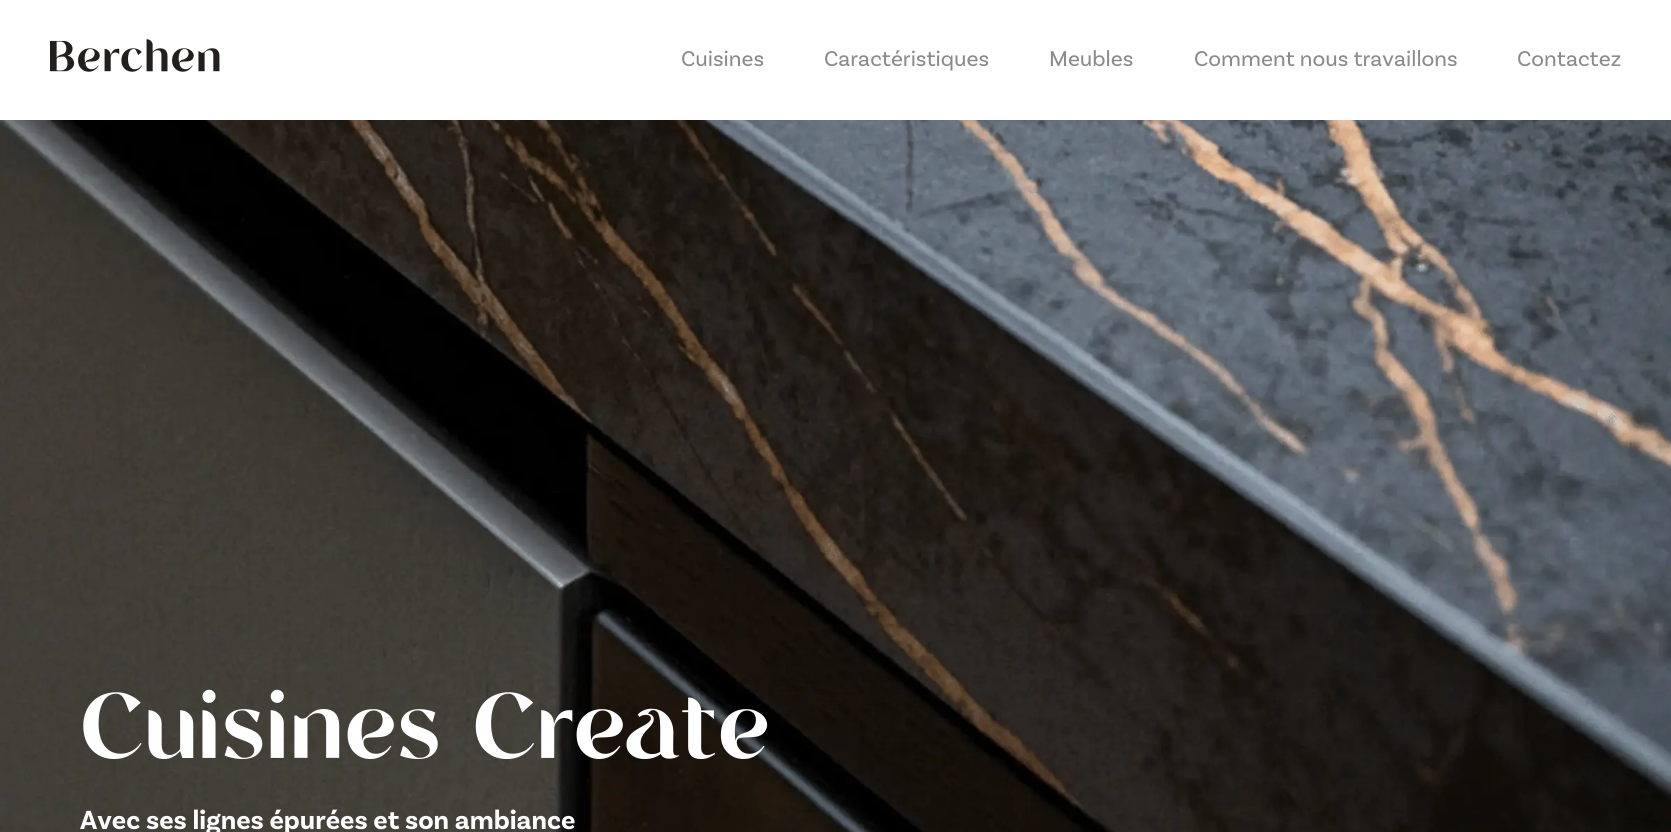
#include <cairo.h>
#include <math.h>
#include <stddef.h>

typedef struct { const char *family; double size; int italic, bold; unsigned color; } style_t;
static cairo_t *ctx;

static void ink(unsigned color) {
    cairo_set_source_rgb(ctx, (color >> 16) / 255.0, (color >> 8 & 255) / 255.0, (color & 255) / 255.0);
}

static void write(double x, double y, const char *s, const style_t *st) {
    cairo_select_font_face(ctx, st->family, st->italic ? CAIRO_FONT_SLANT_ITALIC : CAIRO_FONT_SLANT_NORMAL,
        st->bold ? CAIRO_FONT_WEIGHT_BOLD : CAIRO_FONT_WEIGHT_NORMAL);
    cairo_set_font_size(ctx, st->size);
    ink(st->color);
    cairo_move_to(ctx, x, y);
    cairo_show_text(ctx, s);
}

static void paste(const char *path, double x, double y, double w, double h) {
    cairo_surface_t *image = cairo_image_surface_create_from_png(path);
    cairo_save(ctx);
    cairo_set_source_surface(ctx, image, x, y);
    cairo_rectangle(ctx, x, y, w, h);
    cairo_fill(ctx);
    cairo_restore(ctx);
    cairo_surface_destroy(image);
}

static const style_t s1 = {"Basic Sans", 22.5, 0, 0, 0x8b8b8b};
static const style_t s2 = {"Tangerine", 92.5, 0, 0, 0xffffff};
static const style_t s3 = {"Basic Sans", 27.5, 0, 1, 0xffffff};

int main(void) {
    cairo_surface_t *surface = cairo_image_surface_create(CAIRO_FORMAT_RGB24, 1671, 832);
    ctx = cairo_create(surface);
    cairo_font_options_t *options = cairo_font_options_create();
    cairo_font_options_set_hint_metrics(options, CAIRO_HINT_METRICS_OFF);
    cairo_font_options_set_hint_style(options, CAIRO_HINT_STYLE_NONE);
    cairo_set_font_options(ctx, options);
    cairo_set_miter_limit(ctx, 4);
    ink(0xffffff);
    cairo_paint(ctx);
    paste("pic1.png", 50, 39, 170, 33);
    write(681, 66, "Cuisines", &s1);
    write(824, 66, "Caractéristiques", &s1);
    write(1049, 66, "Meubles", &s1);
    write(1194, 66, "Comment nous travaillons", &s1);
    write(1517, 66, "Contactez", &s1);
    paste("pic2.png", 0, 120, 1671, 712);
    write(80, 758, "Cuisines Create", &s2);
    write(80, 829, "Avec ses lignes épurées et son ambiance", &s3);
    cairo_surface_write_to_png(surface, "screenshot.png");
    cairo_font_options_destroy(options);
    cairo_destroy(ctx);
    cairo_surface_destroy(surface);
    return 0;
}
